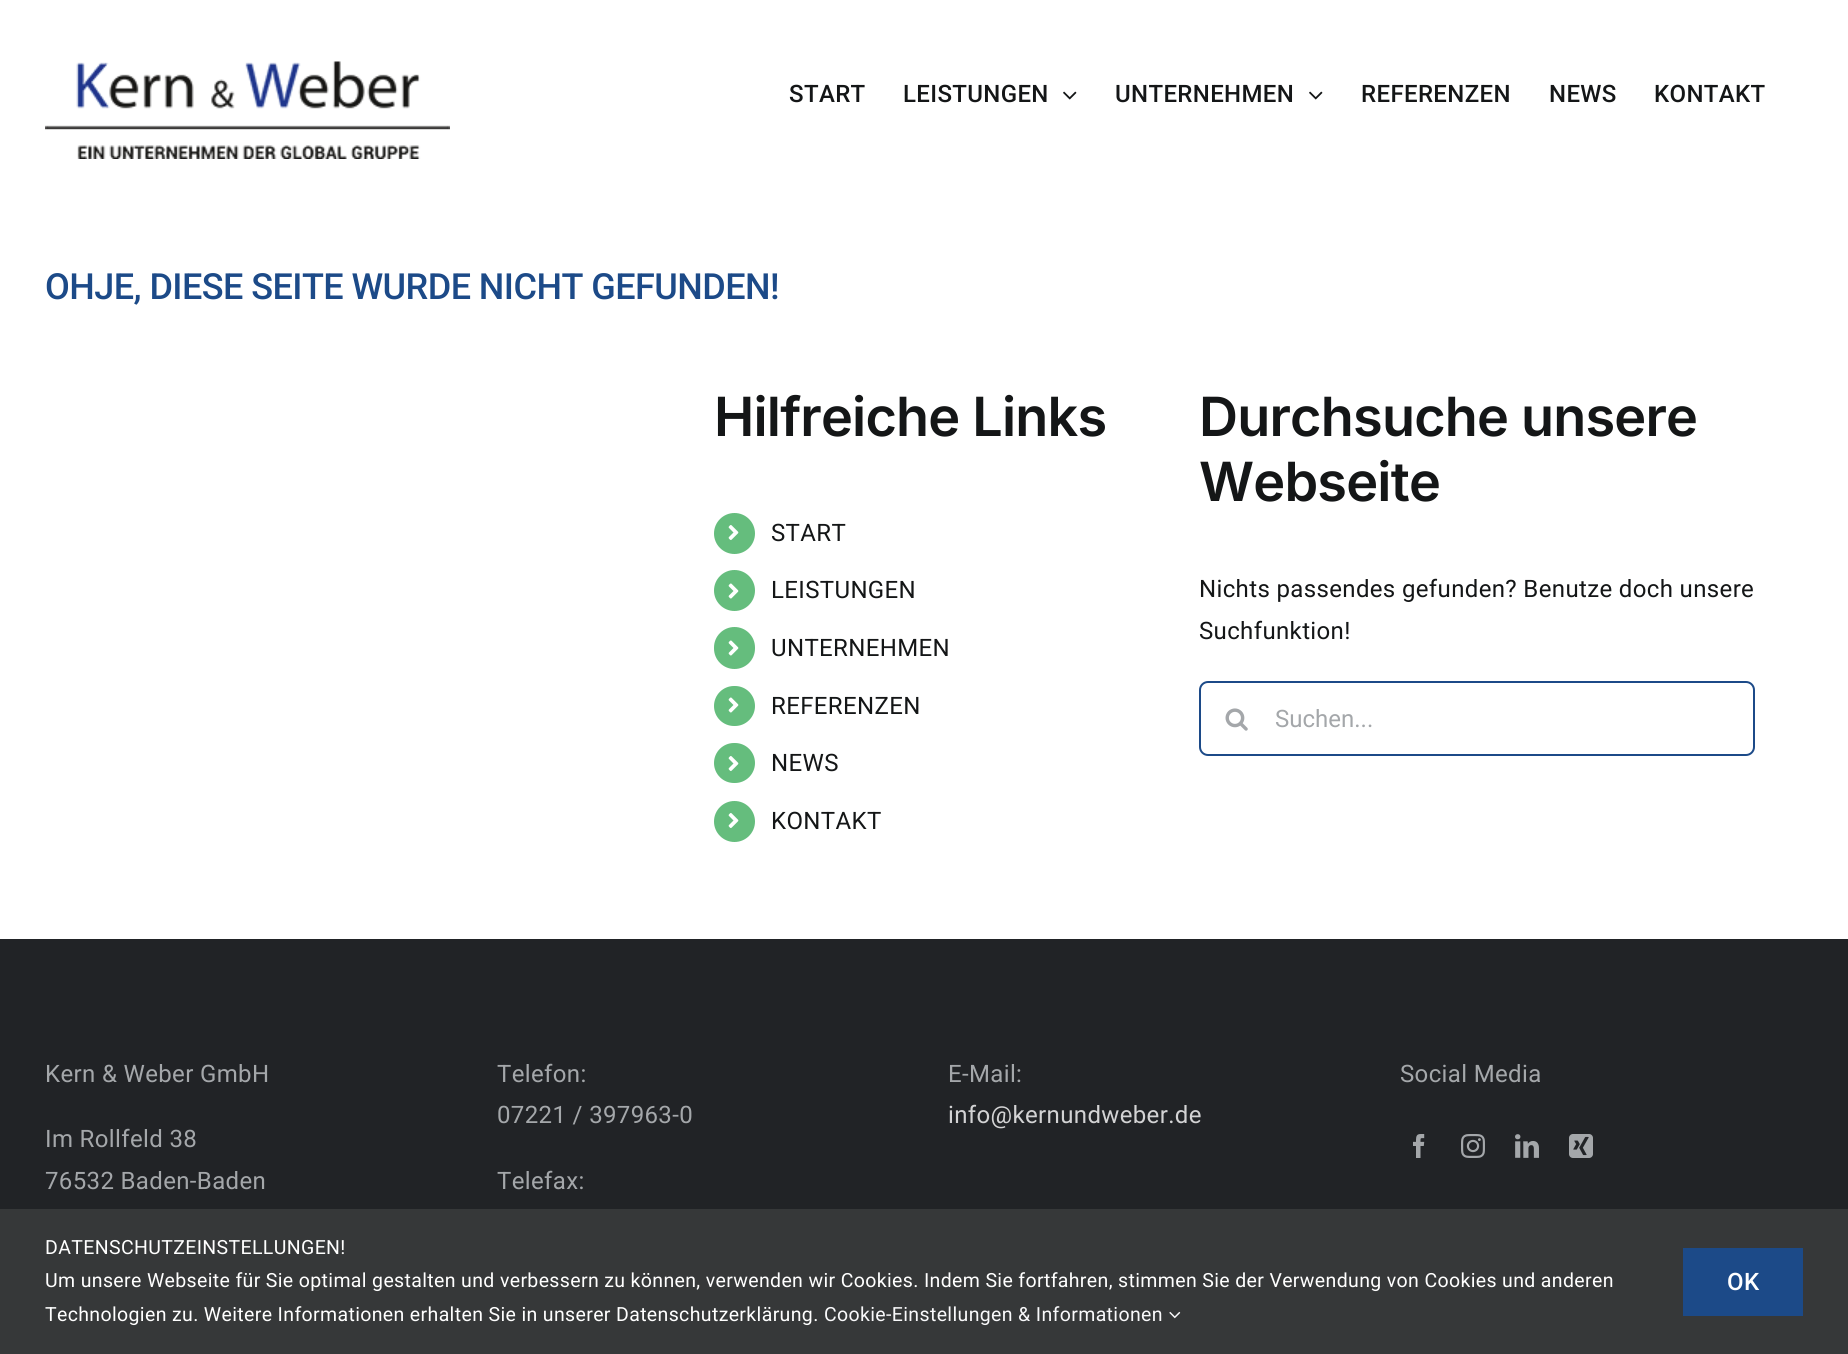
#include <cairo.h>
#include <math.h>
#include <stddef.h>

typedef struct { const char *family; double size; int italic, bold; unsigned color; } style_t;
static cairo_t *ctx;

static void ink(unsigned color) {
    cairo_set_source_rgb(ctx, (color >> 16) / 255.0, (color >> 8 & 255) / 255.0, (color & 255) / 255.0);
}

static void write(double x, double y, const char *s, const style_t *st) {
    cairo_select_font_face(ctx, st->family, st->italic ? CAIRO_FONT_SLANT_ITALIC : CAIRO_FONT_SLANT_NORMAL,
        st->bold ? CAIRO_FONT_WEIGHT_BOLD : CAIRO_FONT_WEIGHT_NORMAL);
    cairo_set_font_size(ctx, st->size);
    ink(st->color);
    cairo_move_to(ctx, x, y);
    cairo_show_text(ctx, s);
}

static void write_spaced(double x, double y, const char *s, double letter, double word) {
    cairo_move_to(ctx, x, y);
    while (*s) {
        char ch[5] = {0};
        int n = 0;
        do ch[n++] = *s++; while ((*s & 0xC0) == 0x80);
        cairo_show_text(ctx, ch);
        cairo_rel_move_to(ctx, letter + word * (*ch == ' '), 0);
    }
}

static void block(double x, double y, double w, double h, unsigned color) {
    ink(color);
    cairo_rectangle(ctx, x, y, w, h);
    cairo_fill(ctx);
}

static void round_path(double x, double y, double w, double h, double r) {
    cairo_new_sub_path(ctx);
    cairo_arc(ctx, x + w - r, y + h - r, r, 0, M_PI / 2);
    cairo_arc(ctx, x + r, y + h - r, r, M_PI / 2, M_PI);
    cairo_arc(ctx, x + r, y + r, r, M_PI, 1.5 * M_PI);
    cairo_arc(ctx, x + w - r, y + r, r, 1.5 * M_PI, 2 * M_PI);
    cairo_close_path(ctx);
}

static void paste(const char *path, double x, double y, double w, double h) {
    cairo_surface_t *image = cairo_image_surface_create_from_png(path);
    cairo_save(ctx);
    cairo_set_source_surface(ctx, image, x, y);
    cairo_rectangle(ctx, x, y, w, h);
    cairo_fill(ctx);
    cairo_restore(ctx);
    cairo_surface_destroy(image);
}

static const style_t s1 = {"Roboto", 24, 0, 0, 0xa4a7aa};

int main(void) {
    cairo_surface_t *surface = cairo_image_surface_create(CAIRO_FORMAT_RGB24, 1848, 1354);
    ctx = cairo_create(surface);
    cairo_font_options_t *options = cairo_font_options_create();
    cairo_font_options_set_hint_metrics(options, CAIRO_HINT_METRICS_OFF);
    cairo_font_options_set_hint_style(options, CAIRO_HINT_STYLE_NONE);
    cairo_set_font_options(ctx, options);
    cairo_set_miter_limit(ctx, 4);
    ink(0xffffff);
    cairo_paint(ctx);
    paste("pic1.png", 45, 61, 405, 98);
    cairo_select_font_face(ctx, "Roboto Medium", CAIRO_FONT_SLANT_NORMAL, CAIRO_FONT_WEIGHT_NORMAL);
    cairo_set_font_size(ctx, 24);
    ink(0x141617);
    write_spaced(789, 102, "START", 0.36, 0);
    write_spaced(903, 102, "LEISTUNGEN", 0.36, 0);
    paste("pic2.png", 1063, 91, 14, 9);
    write_spaced(1115, 102, "UNTERNEHMEN", 0.36, 0);
    paste("pic2.png", 1309, 91, 14, 9);
    write_spaced(1361, 102, "REFERENZEN", 0.36, 0);
    write_spaced(1549, 102, "NEWS", 0.36, 0);
    write_spaced(1654, 102, "KONTAKT", 0.36, 0);
    cairo_set_font_size(ctx, 36);
    ink(0x1c4a88);
    write_spaced(45, 299, "OHJE, DIESE SEITE WURDE NICHT GEFUNDEN!", -0.55, 0);
    cairo_select_font_face(ctx, "Inter SemiBold", CAIRO_FONT_SLANT_NORMAL, CAIRO_FONT_WEIGHT_NORMAL);
    cairo_set_font_size(ctx, 54);
    ink(0x141617);
    write_spaced(714, 436, "Hilfreiche Links", -0.8, 0);
    ink(0x65bd7d);
    cairo_new_path(ctx);
    cairo_arc(ctx, 734.5, 533.5, 20.5, 0, 2 * M_PI);
    cairo_fill(ctx);
    paste("pic3.png", 728, 525, 11, 15);
    cairo_select_font_face(ctx, "Roboto", CAIRO_FONT_SLANT_NORMAL, CAIRO_FONT_WEIGHT_NORMAL);
    cairo_set_font_size(ctx, 24);
    ink(0x141617);
    write_spaced(771, 541, "START", 0.36, 0);
    ink(0x65bd7d);
    cairo_new_path(ctx);
    cairo_arc(ctx, 734.5, 590.5, 20.5, 0, 2 * M_PI);
    cairo_fill(ctx);
    paste("pic4.png", 728, 583, 11, 16);
    ink(0x141617);
    write_spaced(771, 598, "LEISTUNGEN", 0.36, 0);
    ink(0x65bd7d);
    round_path(714, 627, 41, 42, 20.5);
    cairo_fill(ctx);
    paste("pic4.png", 728, 640, 11, 16);
    ink(0x141617);
    write_spaced(771, 656, "UNTERNEHMEN", 0.36, 0);
    ink(0x65bd7d);
    round_path(714, 686, 41, 40, 20);
    cairo_fill(ctx);
    paste("pic4.png", 728, 697, 11, 16);
    ink(0x141617);
    write_spaced(771, 714, "REFERENZEN", 0.36, 0);
    ink(0x65bd7d);
    round_path(714, 743, 41, 40, 20);
    cairo_fill(ctx);
    paste("pic3.png", 728, 756, 11, 15);
    ink(0x141617);
    write_spaced(771, 771, "NEWS", 0.36, 0);
    ink(0x65bd7d);
    cairo_new_path(ctx);
    cairo_arc(ctx, 734.5, 821.5, 20.5, 0, 2 * M_PI);
    cairo_fill(ctx);
    paste("pic3.png", 728, 813, 11, 15);
    ink(0x141617);
    write_spaced(771, 829, "KONTAKT", 0.36, 0);
    cairo_select_font_face(ctx, "Inter SemiBold", CAIRO_FONT_SLANT_NORMAL, CAIRO_FONT_WEIGHT_NORMAL);
    cairo_set_font_size(ctx, 54);
    write_spaced(1199, 436, "Durchsuche unsere", -0.8, 0);
    write_spaced(1199, 501, "Webseite", -0.8, 0);
    cairo_select_font_face(ctx, "Roboto", CAIRO_FONT_SLANT_NORMAL, CAIRO_FONT_WEIGHT_NORMAL);
    cairo_set_font_size(ctx, 24);
    write_spaced(1199, 597, "Nichts passendes gefunden? Benutze doch unsere", 0.36, 0);
    write_spaced(1199, 639, "Suchfunktion!", 0.36, 0);
    round_path(1200, 682, 554, 73, 8);
    ink(0x1c4a88);
    cairo_stroke(ctx);
    paste("pic5.png", 1225, 708, 23, 23);
    write(1275, 727, "Suchen...", &s1);
    block(0, 939, 1848, 270, 0x212326);
    ink(0xa4a7aa);
    write_spaced(45, 1082, "Kern & Weber GmbH", 0.36, 0);
    write_spaced(45, 1147, "Im Rollfeld 38", 0.36, 0);
    write_spaced(45, 1189, "76532 Baden-Baden", 0.36, 0);
    write_spaced(497, 1082, "Telefon:", 0.36, 0);
    write_spaced(497, 1123, "07221 / 397963-0", 0.36, 0);
    write_spaced(497, 1189, "Telefax:", 0.36, 0);
    write_spaced(948, 1082, "E-Mail:", 0.36, 0);
    ink(0xd3d3d4);
    write_spaced(948, 1123, "info@kernundweber.de", 0.36, 0);
    ink(0xa4a7aa);
    write_spaced(1400, 1082, "Social Media", 0.36, 0);
    paste("pic6.png", 1413, 1134, 12, 24);
    paste("pic7.png", 1461, 1134, 24, 24);
    paste("pic8.png", 1515, 1134, 24, 24);
    paste("pic9.png", 1569, 1134, 24, 24);
    block(0, 1209, 1848, 145, 0x363839);
    cairo_set_font_size(ctx, 19.5);
    ink(0xffffff);
    write_spaced(45, 1254, "DATENSCHUTZEINSTELLUNGEN!", 0.36, 0);
    write_spaced(45, 1287, "Um unsere Webseite für Sie optimal gestalten und verbessern zu können, verwenden wir Cookies. Indem Sie fortfahren, stimmen Sie der Verwendung von Cookies und anderen", 0.36, 0);
    write_spaced(45, 1321, "Technologien zu. Weitere Informationen erhalten Sie in unserer Datenschutzerklärung.", 0.36, 0);
    ink(0xf9f9fb);
    write_spaced(824, 1321, "Cookie-Einstellungen & Informationen", 0.36, 0);
    paste("pic10.png", 1169, 1311, 12, 8);
    block(1683, 1248, 120, 68, 0x1c4a88);
    cairo_select_font_face(ctx, "Roboto Medium", CAIRO_FONT_SLANT_NORMAL, CAIRO_FONT_WEIGHT_NORMAL);
    cairo_set_font_size(ctx, 24);
    ink(0xffffff);
    write_spaced(1727, 1290, "OK", 0.36, 0);
    cairo_surface_write_to_png(surface, "screenshot.png");
    cairo_font_options_destroy(options);
    cairo_destroy(ctx);
    cairo_surface_destroy(surface);
    return 0;
}
